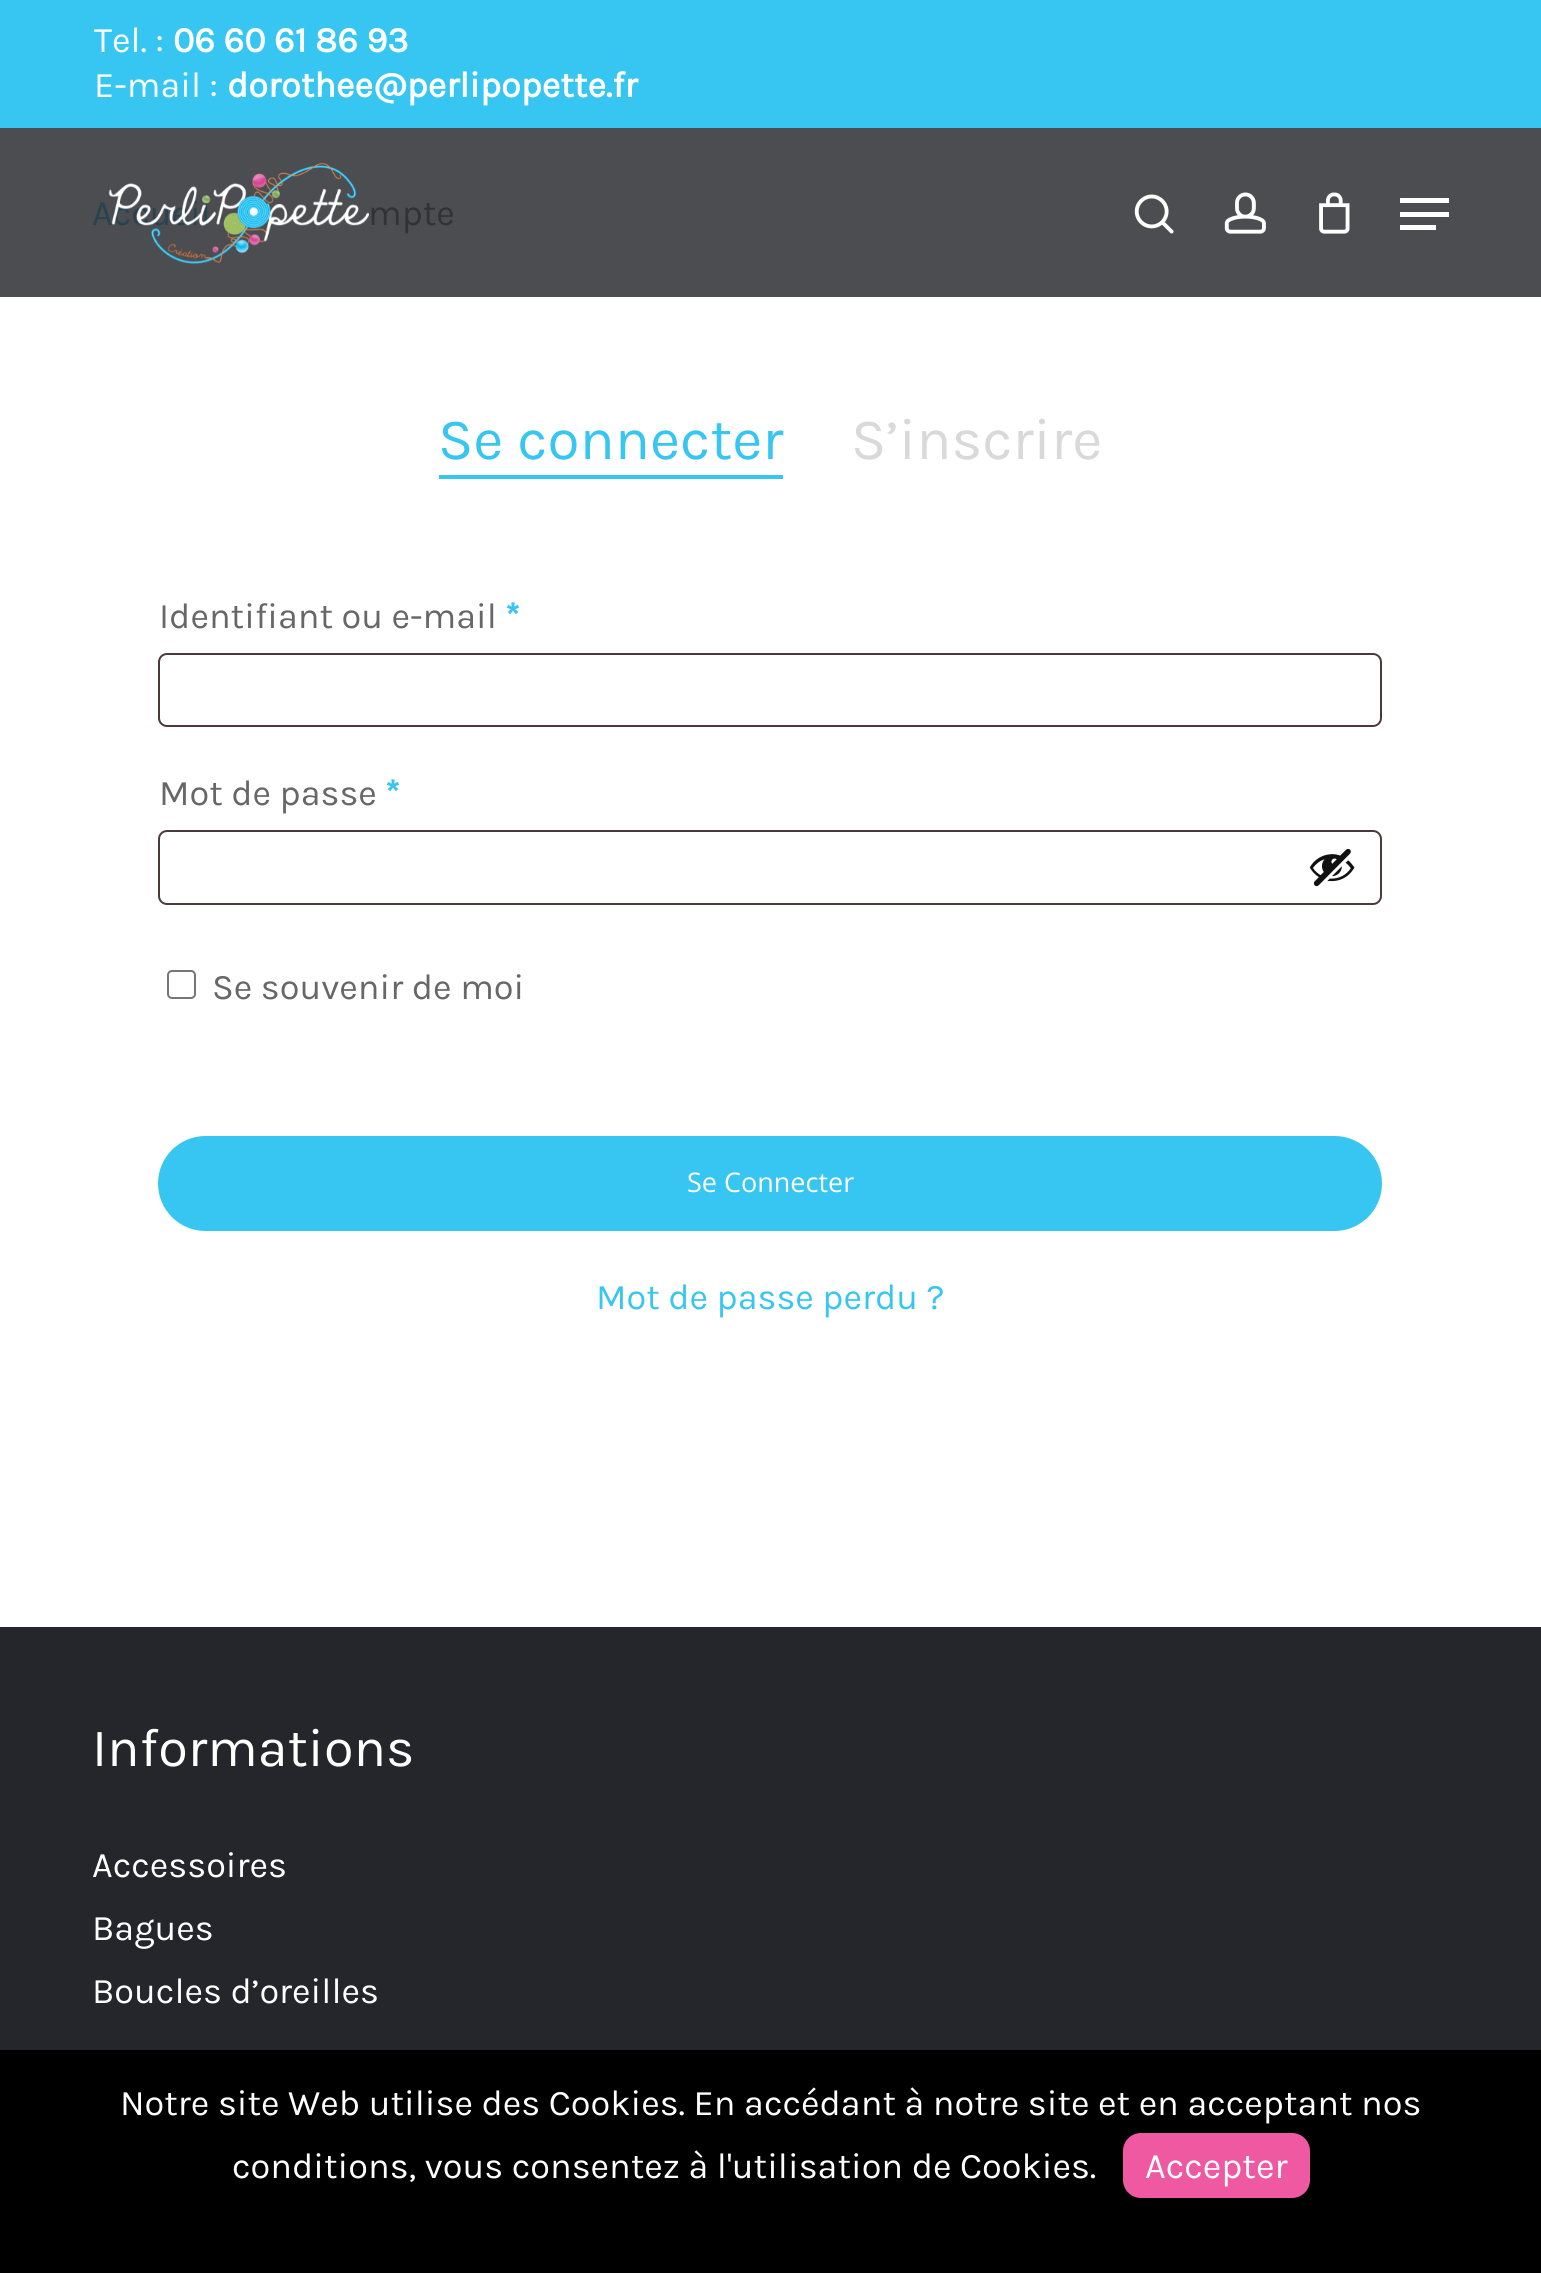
#include <cairo.h>
#include <math.h>
#include <stddef.h>

typedef struct { const char *family; double size; int italic, bold; unsigned color; } style_t;
static cairo_t *ctx;

static void ink(unsigned color) {
    cairo_set_source_rgb(ctx, (color >> 16) / 255.0, (color >> 8 & 255) / 255.0, (color & 255) / 255.0);
}

static void write(double x, double y, const char *s, const style_t *st) {
    cairo_select_font_face(ctx, st->family, st->italic ? CAIRO_FONT_SLANT_ITALIC : CAIRO_FONT_SLANT_NORMAL,
        st->bold ? CAIRO_FONT_WEIGHT_BOLD : CAIRO_FONT_WEIGHT_NORMAL);
    cairo_set_font_size(ctx, st->size);
    ink(st->color);
    cairo_move_to(ctx, x, y);
    cairo_show_text(ctx, s);
}

static void block(double x, double y, double w, double h, unsigned color) {
    ink(color);
    cairo_rectangle(ctx, x, y, w, h);
    cairo_fill(ctx);
}

static void round_path(double x, double y, double w, double h, double r) {
    cairo_new_sub_path(ctx);
    cairo_arc(ctx, x + w - r, y + h - r, r, 0, M_PI / 2);
    cairo_arc(ctx, x + r, y + h - r, r, M_PI / 2, M_PI);
    cairo_arc(ctx, x + r, y + r, r, M_PI, 1.5 * M_PI);
    cairo_arc(ctx, x + w - r, y + r, r, 1.5 * M_PI, 2 * M_PI);
    cairo_close_path(ctx);
}

static void paste(const char *path, double x, double y, double w, double h) {
    cairo_surface_t *image = cairo_image_surface_create_from_png(path);
    cairo_save(ctx);
    cairo_set_source_surface(ctx, image, x, y);
    cairo_rectangle(ctx, x, y, w, h);
    cairo_fill(ctx);
    cairo_restore(ctx);
    cairo_surface_destroy(image);
}

static const style_t s1 = {"Karla", 36, 0, 0, 0xffffff};
static const style_t s2 = {"Karla", 36, 0, 1, 0xffffff};
static const style_t s3 = {"Karla", 36, 0, 0, 0x28434f};
static const style_t s4 = {"Karla", 36, 0, 0, 0x313236};
static const style_t s5 = {"Karla", 58.5, 0, 0, 0x37c6f2};
static const style_t s6 = {"Karla", 58.5, 0, 0, 0xd9d9d9};
static const style_t s7 = {"Karla", 36, 0, 0, 0x676767};
static const style_t s8 = {"Karla", 36, 0, 1, 0x37c6f2};
static const style_t s9 = {"Open Sans", 27, 0, 0, 0xffffff};
static const style_t s10 = {"Karla", 36, 0, 0, 0x37c6f2};
static const style_t s11 = {"Karla", 54, 0, 0, 0xffffff};

int main(void) {
    cairo_surface_t *surface = cairo_image_surface_create(CAIRO_FORMAT_RGB24, 1541, 2273);
    ctx = cairo_create(surface);
    cairo_font_options_t *options = cairo_font_options_create();
    cairo_font_options_set_hint_metrics(options, CAIRO_HINT_METRICS_OFF);
    cairo_font_options_set_hint_style(options, CAIRO_HINT_STYLE_NONE);
    cairo_set_font_options(ctx, options);
    cairo_set_miter_limit(ctx, 4);
    ink(0xffffff);
    cairo_paint(ctx);
    block(0, 128, 1541, 169, 0x4c4d51);
    block(0, 0, 1541, 128, 0x37c6f2);
    write(94, 52, "Tel. :", &s1);
    write(173, 52, "06 60 61 86 93", &s2);
    write(94, 97, "E-mail :", &s1);
    write(227, 97, "dorothee@perlipopette.fr", &s2);
    write(92, 225, "Accueil", &s3);
    paste("pic1.png", 108, 162, 262, 103);
    paste("pic2.png", 1134, 194, 40, 40);
    paste("pic3.png", 1224, 192, 42, 42);
    paste("pic4.png", 1319, 192, 31, 42);
    block(1400, 198, 49, 5, 0xffffff);
    block(1400, 225, 36, 5, 0xffffff);
    block(1400, 212, 49, 5, 0xffffff);
    write(368, 225, "mpte", &s4);
    block(439, 475, 344, 4, 0x37c6f2);
    write(438, 459, "Se connecter", &s5);
    write(851, 459, "S’inscrire", &s6);
    write(159, 628, "Identifiant ou e-mail", &s7);
    write(505, 628, "*", &s8);
    round_path(159, 654, 1222, 72, 8);
    ink(0x4d3939);
    cairo_stroke(ctx);
    write(159, 805, "Mot de passe", &s7);
    write(385, 805, "*", &s8);
    round_path(159, 831, 1222, 73, 8);
    ink(0x4d3939);
    cairo_stroke(ctx);
    paste("pic5.png", 1309, 848, 46, 39);
    round_path(168, 971, 27, 27, 4);
    ink(0x767676);
    cairo_stroke(ctx);
    write(212, 999, "Se souvenir de moi", &s7);
    ink(0x37c6f2);
    round_path(158, 1136, 1224, 95, 47.5);
    cairo_fill(ctx);
    write(687, 1192, "Se Connecter", &s9);
    write(596, 1309, "Mot de passe perdu ?", &s10);
    block(0, 1627, 1541, 423, 0x25262b);
    write(92, 1766, "Informations", &s11);
    write(92, 1877, "Accessoires", &s1);
    write(92, 1940, "Bagues", &s1);
    write(92, 2003, "Boucles d’oreilles", &s1);
    block(0, 2050, 1541, 223, 0x000000);
    write(120, 2115, "Notre site Web utilise des Cookies. En accédant à notre site et en acceptant nos", &s1);
    write(232, 2178, "conditions, vous consentez à l'utilisation de Cookies.", &s1);
    ink(0xef59a1);
    round_path(1123, 2133, 187, 65, 18);
    cairo_fill(ctx);
    write(1145, 2178, "Accepter", &s1);
    cairo_surface_write_to_png(surface, "screenshot.png");
    cairo_font_options_destroy(options);
    cairo_destroy(ctx);
    cairo_surface_destroy(surface);
    return 0;
}
